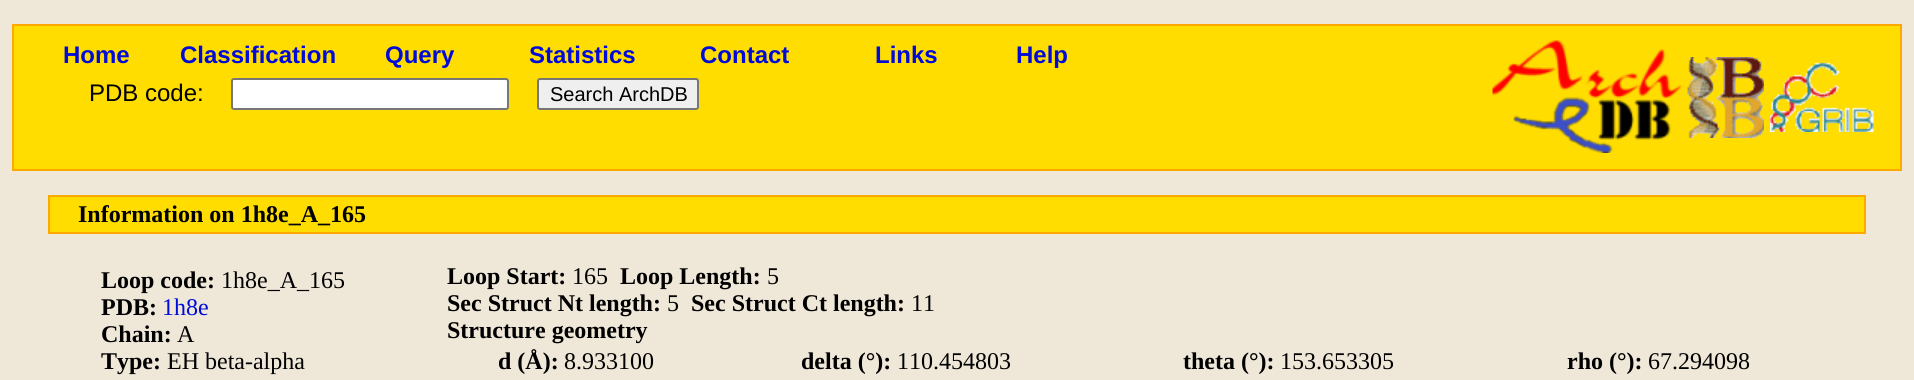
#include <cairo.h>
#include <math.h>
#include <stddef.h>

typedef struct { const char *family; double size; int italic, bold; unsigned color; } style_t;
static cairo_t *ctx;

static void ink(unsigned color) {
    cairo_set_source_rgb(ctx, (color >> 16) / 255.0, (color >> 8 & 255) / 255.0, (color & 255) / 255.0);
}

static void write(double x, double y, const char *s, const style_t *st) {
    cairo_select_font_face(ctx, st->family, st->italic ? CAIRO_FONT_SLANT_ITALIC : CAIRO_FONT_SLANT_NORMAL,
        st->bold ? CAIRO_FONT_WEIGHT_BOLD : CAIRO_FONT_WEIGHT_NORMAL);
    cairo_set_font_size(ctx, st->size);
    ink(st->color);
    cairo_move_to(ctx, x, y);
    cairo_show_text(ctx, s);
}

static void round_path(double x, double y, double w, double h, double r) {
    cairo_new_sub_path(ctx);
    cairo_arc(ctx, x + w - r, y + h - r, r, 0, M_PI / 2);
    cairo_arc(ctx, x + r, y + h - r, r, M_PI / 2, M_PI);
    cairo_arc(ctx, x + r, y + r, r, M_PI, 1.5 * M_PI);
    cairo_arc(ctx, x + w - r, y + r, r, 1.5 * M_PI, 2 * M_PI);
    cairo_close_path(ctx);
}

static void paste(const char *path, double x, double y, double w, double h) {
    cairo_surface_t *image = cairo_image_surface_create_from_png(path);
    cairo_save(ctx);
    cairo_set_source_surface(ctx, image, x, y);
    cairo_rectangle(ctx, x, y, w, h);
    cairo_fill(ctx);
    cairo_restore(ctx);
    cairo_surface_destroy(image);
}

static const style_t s1 = {"Liberation Sans", 24, 0, 1, 0x000ad9};
static const style_t s2 = {"Liberation Sans", 24, 0, 0, 0x000000};
static const style_t s3 = {"Liberation Sans", 20, 0, 0, 0x000000};
static const style_t s4 = {"Liberation Serif", 24, 0, 1, 0x000000};
static const style_t s5 = {"Liberation Serif", 24, 0, 0, 0x000000};
static const style_t s6 = {"Liberation Serif", 24, 0, 0, 0x000ad9};

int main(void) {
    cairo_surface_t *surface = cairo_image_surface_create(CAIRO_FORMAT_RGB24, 1914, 380);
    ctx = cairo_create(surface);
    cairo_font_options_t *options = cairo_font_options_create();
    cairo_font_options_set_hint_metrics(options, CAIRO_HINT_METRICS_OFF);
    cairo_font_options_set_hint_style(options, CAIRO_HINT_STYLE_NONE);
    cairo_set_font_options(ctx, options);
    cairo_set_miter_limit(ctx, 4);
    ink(0xefe8d9);
    cairo_paint(ctx);
    ink(0xffdd00);
    cairo_rectangle(ctx, 13, 25, 1888, 145);
    cairo_fill_preserve(ctx);
    ink(0xffa800);
    cairo_stroke(ctx);
    write(63, 63, "Home", &s1);
    write(180, 63, "Classification", &s1);
    write(385, 63, "Query", &s1);
    write(529, 63, "Statistics", &s1);
    write(700, 63, "Contact", &s1);
    write(875, 63, "Links", &s1);
    write(1016, 63, "Help", &s1);
    write(89, 101, "PDB code:", &s2);
    ink(0xffffff);
    round_path(232, 79, 276, 30, 2);
    cairo_fill_preserve(ctx);
    ink(0x767676);
    cairo_stroke(ctx);
    ink(0xefefef);
    round_path(538, 79, 160, 30, 2);
    cairo_fill_preserve(ctx);
    ink(0x767676);
    cairo_stroke(ctx);
    write(550, 101, "Search ArchDB", &s3);
    paste("pic1.png", 1492, 40, 190, 113);
    paste("pic2.png", 1687, 57, 77, 81);
    paste("pic3.png", 1770, 62, 104, 70);
    ink(0xffdd00);
    cairo_rectangle(ctx, 49, 196, 1816, 37);
    cairo_fill_preserve(ctx);
    ink(0xffa800);
    cairo_stroke(ctx);
    write(78, 222, "Information on 1h8e_A_165", &s4);
    write(101, 288, "Loop code:", &s4);
    write(221, 288, "1h8e_A_165", &s5);
    write(101, 315, "PDB:", &s4);
    write(162, 315, "1h8e", &s6);
    write(101, 342, "Chain:", &s4);
    write(177, 342, "A", &s5);
    write(101, 369, "Type:", &s4);
    write(167, 369, "EH beta-alpha", &s5);
    write(447, 284, "Loop Start:", &s4);
    write(572, 284, "165", &s5);
    write(620, 284, "Loop Length:", &s4);
    write(767, 284, "5", &s5);
    write(447, 311, "Sec Struct Nt length:", &s4);
    write(667, 311, "5", &s5);
    write(691, 311, "Sec Struct Ct length:", &s4);
    write(911, 311, "11", &s5);
    write(447, 338, "Structure geometry", &s4);
    write(498, 369, "d (Å):", &s4);
    write(564, 369, "8.933100", &s5);
    write(801, 369, "delta (°):", &s4);
    write(897, 369, "110.454803", &s5);
    write(1183, 369, "theta (°):", &s4);
    write(1280, 369, "153.653305", &s5);
    write(1567, 369, "rho (°):", &s4);
    write(1648, 369, "67.294098", &s5);
    cairo_surface_write_to_png(surface, "screenshot.png");
    cairo_font_options_destroy(options);
    cairo_destroy(ctx);
    cairo_surface_destroy(surface);
    return 0;
}
